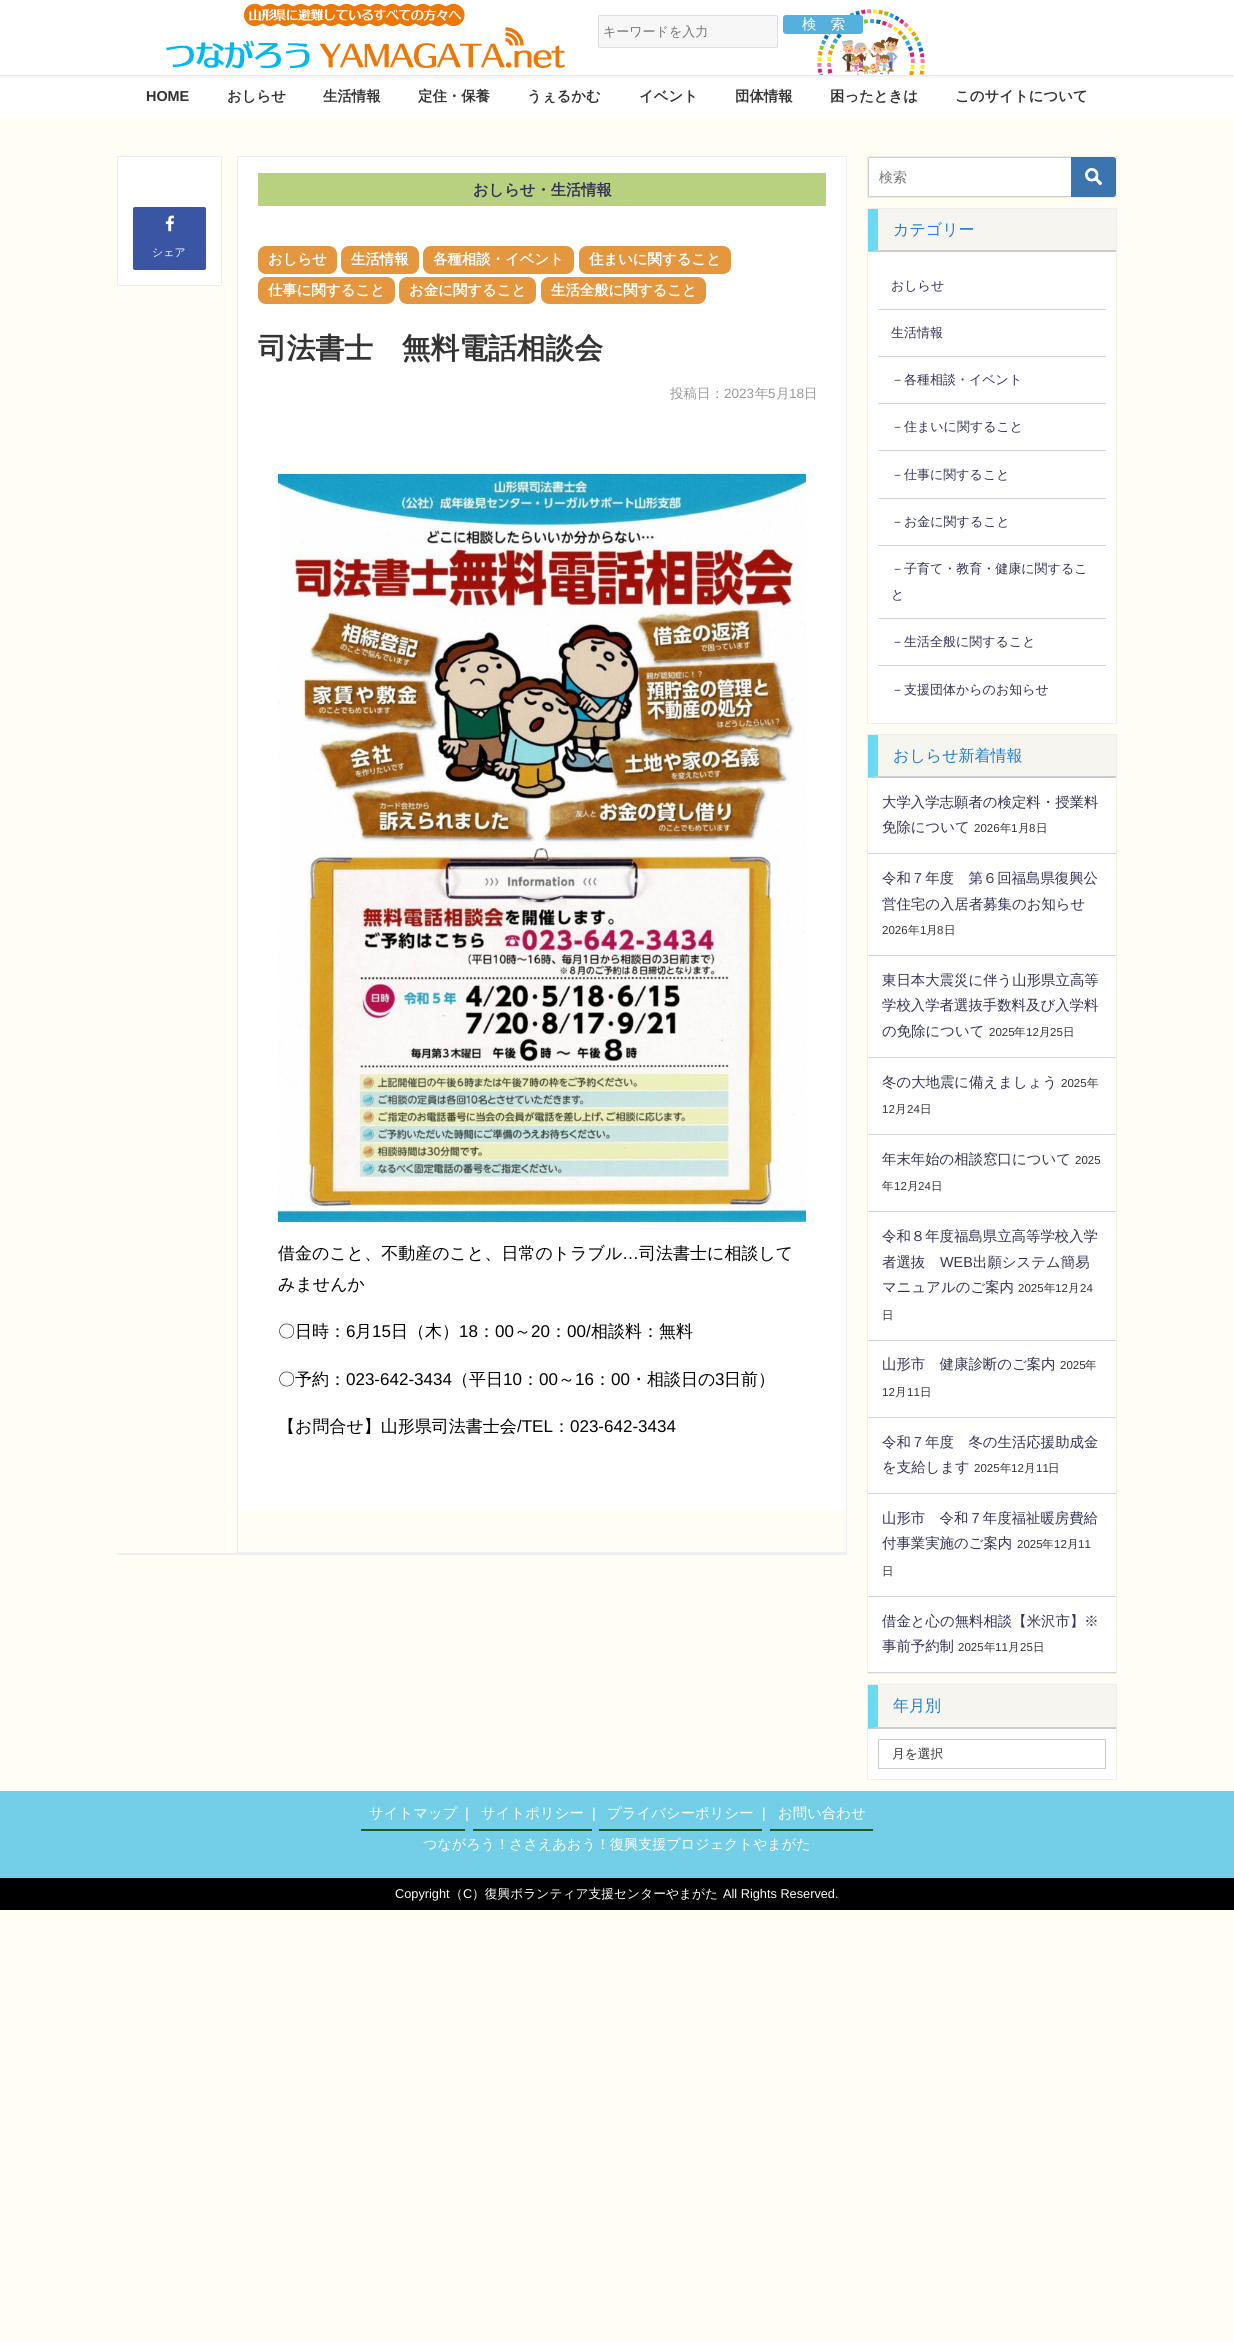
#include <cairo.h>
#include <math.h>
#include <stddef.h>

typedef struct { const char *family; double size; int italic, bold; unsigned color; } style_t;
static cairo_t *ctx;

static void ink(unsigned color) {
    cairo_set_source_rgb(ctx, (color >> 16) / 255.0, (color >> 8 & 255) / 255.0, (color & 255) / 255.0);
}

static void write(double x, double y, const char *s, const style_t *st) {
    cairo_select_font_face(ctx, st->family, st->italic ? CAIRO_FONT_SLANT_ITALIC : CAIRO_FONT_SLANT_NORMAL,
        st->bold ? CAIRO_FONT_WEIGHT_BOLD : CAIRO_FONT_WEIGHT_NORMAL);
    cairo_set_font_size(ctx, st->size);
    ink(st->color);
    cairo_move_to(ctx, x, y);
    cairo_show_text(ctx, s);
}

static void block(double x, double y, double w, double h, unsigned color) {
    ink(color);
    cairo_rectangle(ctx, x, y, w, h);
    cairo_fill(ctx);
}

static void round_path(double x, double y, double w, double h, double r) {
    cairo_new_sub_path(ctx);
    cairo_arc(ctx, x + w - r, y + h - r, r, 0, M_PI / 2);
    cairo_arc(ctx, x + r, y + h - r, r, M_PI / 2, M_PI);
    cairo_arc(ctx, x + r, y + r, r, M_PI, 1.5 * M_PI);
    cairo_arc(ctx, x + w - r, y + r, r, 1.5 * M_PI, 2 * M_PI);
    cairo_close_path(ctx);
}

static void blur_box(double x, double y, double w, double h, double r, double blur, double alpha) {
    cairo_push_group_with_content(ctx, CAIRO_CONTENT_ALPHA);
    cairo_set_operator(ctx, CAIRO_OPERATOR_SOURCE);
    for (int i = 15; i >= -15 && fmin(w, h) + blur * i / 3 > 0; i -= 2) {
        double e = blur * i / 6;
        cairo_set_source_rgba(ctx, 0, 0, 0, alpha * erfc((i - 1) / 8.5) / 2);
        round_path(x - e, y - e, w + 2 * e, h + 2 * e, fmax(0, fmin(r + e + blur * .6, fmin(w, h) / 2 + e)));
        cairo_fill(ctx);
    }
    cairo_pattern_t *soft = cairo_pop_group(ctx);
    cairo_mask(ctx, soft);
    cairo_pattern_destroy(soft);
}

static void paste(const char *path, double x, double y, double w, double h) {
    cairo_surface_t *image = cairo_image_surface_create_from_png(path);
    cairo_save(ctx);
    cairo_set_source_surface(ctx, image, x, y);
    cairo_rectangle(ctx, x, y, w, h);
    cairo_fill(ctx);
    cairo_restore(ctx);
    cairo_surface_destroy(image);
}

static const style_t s1 = {"WenQuanYi Zen Hei Medium", 13, 0, 0, 0x757575};
static const style_t s2 = {"WenQuanYi Zen Hei Medium", 14.4, 0, 0, 0xffffff};
static const style_t s3 = {"Liberation Sans", 14.4, 0, 1, 0x333333};
static const style_t s4 = {"WenQuanYi Zen Hei", 14.4, 0, 1, 0x333333};
static const style_t s5 = {"WenQuanYi Zen Hei Medium", 11, 0, 0, 0xffffff};
static const style_t s6 = {"WenQuanYi Zen Hei", 15.25, 0, 1, 0x333355};
static const style_t s7 = {"WenQuanYi Zen Hei", 14.4, 0, 1, 0xffffff};
static const style_t s8 = {"WenQuanYi Zen Hei", 28.75, 0, 1, 0x333333};
static const style_t s9 = {"WenQuanYi Zen Hei Medium", 13.5, 0, 0, 0x999999};
static const style_t s10 = {"Liberation Sans", 13.5, 0, 0, 0x999999};
static const style_t s11 = {"WenQuanYi Zen Hei Medium", 17, 0, 0, 0x000000};
static const style_t s12 = {"Liberation Sans", 17, 0, 0, 0x000000};
static const style_t s13 = {"WenQuanYi Zen Hei Medium", 14, 0, 0, 0x757575};
static const style_t s14 = {"WenQuanYi Zen Hei Medium", 16, 0, 0, 0x227dd8};
static const style_t s15 = {"WenQuanYi Zen Hei Medium", 13, 0, 0, 0x333355};
static const style_t s16 = {"WenQuanYi Zen Hei Medium", 14.4, 0, 0, 0x333355};
static const style_t s17 = {"Liberation Sans", 11.5, 0, 0, 0x333333};
static const style_t s18 = {"WenQuanYi Zen Hei Medium", 11.5, 0, 0, 0x333333};
static const style_t s19 = {"Liberation Sans", 14.4, 0, 0, 0x333355};
static const style_t s20 = {"WenQuanYi Zen Hei Medium", 12.75, 0, 0, 0x333333};
static const style_t s21 = {"Liberation Sans", 14.4, 0, 0, 0xffffff};
static const style_t s22 = {"WenQuanYi Zen Hei Medium", 14.1, 0, 0, 0xffffff};
static const style_t s23 = {"Liberation Sans", 12.75, 0, 0, 0xffffff};
static const style_t s24 = {"WenQuanYi Zen Hei Medium", 12.75, 0, 0, 0xffffff};

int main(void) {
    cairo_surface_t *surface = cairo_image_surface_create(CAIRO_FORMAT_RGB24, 1234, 2342);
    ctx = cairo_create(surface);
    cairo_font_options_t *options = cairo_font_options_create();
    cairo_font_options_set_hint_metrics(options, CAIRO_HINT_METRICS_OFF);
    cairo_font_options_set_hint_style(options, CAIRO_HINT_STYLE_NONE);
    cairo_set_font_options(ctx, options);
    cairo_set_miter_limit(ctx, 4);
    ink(0xfffdf4);
    cairo_paint(ctx);
    block(0, 75, 1234, 43, 0xffffff);
    ink(0x000000);
    blur_box(0, 0, 1234, 75, 0, 2, 0.2);
    block(0, 0, 1234, 75, 0xffffff);
    paste("pic1.png", 166, 4, 399, 65);
    paste("pic2.png", 817, 9, 108, 66);
    ink(0xf7f7f7);
    round_path(598.5, 15.5, 179, 32, 1.5);
    cairo_fill_preserve(ctx);
    ink(0xdddddd);
    cairo_set_line_width(ctx, 1);
    cairo_stroke(ctx);
    write(603, 36, "キーワードを入力", &s1);
    ink(0x54b0dc);
    round_path(783, 15, 80, 19, 3);
    cairo_fill(ctx);
    write(802, 29, "検　索", &s2);
    write(146, 101, "HOME", &s3);
    write(227, 101, "おしらせ", &s4);
    write(323, 101, "生活情報", &s4);
    write(418, 101, "定住・保養", &s4);
    write(527, 101, "うぇるかむ", &s4);
    write(639, 101, "イベント", &s4);
    write(735, 101, "団体情報", &s4);
    write(830, 101, "困ったときは", &s4);
    write(955, 101, "このサイトについて", &s4);
    ink(0xffffff);
    cairo_rectangle(ctx, 117.5, 156.5, 104, 129);
    cairo_fill_preserve(ctx);
    ink(0xeeeeee);
    cairo_stroke(ctx);
    ink(0x3b55a5);
    round_path(133, 207, 73, 63, 2);
    cairo_fill(ctx);
    paste("pic3.png", 165, 215, 9, 17);
    write(152, 256, "シェア", &s5);
    cairo_rectangle(ctx, 237.5, 156.5, 609, 1396);
    ink(0xeeeeee);
    cairo_stroke(ctx);
    block(238, 157, 608, 1353, 0xffffff);
    block(258, 173, 568, 33, 0xb8d180);
    write(473, 195, "おしらせ・生活情報", &s6);
    ink(0xe59740);
    round_path(258, 246, 79, 28, 8);
    cairo_fill(ctx);
    write(268, 264, "おしらせ", &s7);
    ink(0xe59740);
    round_path(341, 246, 78, 28, 8);
    cairo_fill(ctx);
    write(351, 264, "生活情報", &s7);
    ink(0xe59740);
    round_path(423, 246, 151, 28, 8);
    cairo_fill(ctx);
    write(433, 264, "各種相談・イベント", &s7);
    ink(0xe59740);
    round_path(579, 246, 152, 28, 8);
    cairo_fill(ctx);
    write(589, 264, "住まいに関すること", &s7);
    ink(0xe59740);
    round_path(258, 277, 137, 27, 8);
    cairo_fill(ctx);
    write(268, 295, "仕事に関すること", &s7);
    ink(0xe59740);
    round_path(399, 277, 137, 27, 8);
    cairo_fill(ctx);
    write(409, 295, "お金に関すること", &s7);
    ink(0xe59740);
    round_path(541, 277, 165, 27, 8);
    cairo_fill(ctx);
    write(551, 295, "生活全般に関すること", &s7);
    write(258, 358, "司法書士　無料電話相談会", &s8);
    write(670, 398, "投稿日：", &s9);
    write(724, 398, "2023", &s10);
    write(755, 398, "年", &s9);
    write(768, 398, "5", &s10);
    write(776, 398, "月", &s9);
    write(789, 398, "18", &s10);
    write(804, 398, "日", &s9);
    paste("pic4.png", 278, 474, 528, 748);
    write(278, 1259, "借金のこと、不動産のこと、日常のトラブル", &s11);
    write(622, 1259, "…", &s12);
    write(639, 1259, "司法書士に相談して", &s11);
    write(278, 1290, "みませんか", &s11);
    write(278, 1337, "〇日時：", &s11);
    write(346, 1337, "6", &s12);
    write(355, 1337, "月", &s11);
    write(372, 1337, "15", &s12);
    write(391, 1337, "日（木）", &s11);
    write(459, 1337, "18", &s12);
    write(478, 1337, "：", &s11);
    write(495, 1337, "00", &s12);
    write(514, 1337, "～", &s11);
    write(531, 1337, "20", &s12);
    write(550, 1337, "：", &s11);
    write(567, 1337, "00/", &s12);
    write(591, 1337, "相談料：無料", &s11);
    write(278, 1385, "〇予約：", &s11);
    write(346, 1385, "023-642-3434", &s12);
    write(452, 1385, "（平日", &s11);
    write(503, 1385, "10", &s12);
    write(522, 1385, "：", &s11);
    write(539, 1385, "00", &s12);
    write(558, 1385, "～", &s11);
    write(575, 1385, "16", &s12);
    write(594, 1385, "：", &s11);
    write(611, 1385, "00", &s12);
    write(630, 1385, "・相談日の", &s11);
    write(715, 1385, "3", &s12);
    write(724, 1385, "日前）", &s11);
    write(278, 1432, "【お問合せ】山形県司法書士会", &s11);
    write(517, 1432, "/TEL", &s12);
    write(553, 1432, "：", &s11);
    write(570, 1432, "023-642-3434", &s12);
    block(117, 1553, 730, 2, 0xeeeeee);
    ink(0xffffff);
    cairo_rectangle(ctx, 867.5, 156.5, 249, 41);
    cairo_fill_preserve(ctx);
    ink(0xeeeeee);
    cairo_stroke(ctx);
    round_path(868.5, 157.5, 247, 39, 1.5);
    ink(0xcccccc);
    cairo_stroke(ctx);
    write(879, 182, "検索", &s13);
    ink(0x3c74ad);
    cairo_new_path(ctx);
    cairo_move_to(ctx, 1071, 157);
    cairo_line_to(ctx, 1113, 157);
    cairo_curve_to(ctx, 1114.5, 157, 1116, 158.5, 1116, 160);
    cairo_line_to(ctx, 1116, 194);
    cairo_curve_to(ctx, 1116, 195.5, 1114.5, 197, 1113, 197);
    cairo_line_to(ctx, 1071, 197);
    cairo_close_path(ctx);
    cairo_fill(ctx);
    paste("pic5.png", 1085, 168, 17, 17);
    block(868, 252, 248, 471, 0xffffff);
    cairo_rectangle(ctx, 867.5, 208.5, 249, 515);
    ink(0xeeeeee);
    cairo_stroke(ctx);
    block(868, 209, 248, 43, 0xf7f5ef);
    ink(0xcccccc);
    cairo_new_path(ctx);
    cairo_move_to(ctx, 1116, 252);
    cairo_line_to(ctx, 868, 252);
    cairo_line_to(ctx, 878, 250);
    cairo_line_to(ctx, 1116, 250);
    cairo_close_path(ctx);
    cairo_fill(ctx);
    ink(0x6bd9ef);
    cairo_new_path(ctx);
    cairo_move_to(ctx, 868, 252);
    cairo_line_to(ctx, 868, 209);
    cairo_line_to(ctx, 878, 209);
    cairo_line_to(ctx, 878, 250);
    cairo_close_path(ctx);
    cairo_fill(ctx);
    write(893, 235, "カテゴリー", &s14);
    block(878, 309, 228, 1, 0xd2d2d2);
    write(891, 290, "おしらせ", &s15);
    block(878, 356, 228, 1, 0xd2d2d2);
    write(891, 337, "生活情報", &s15);
    block(878, 403, 228, 1, 0xd2d2d2);
    write(891, 384, "－各種相談・イベント", &s15);
    block(878, 450, 228, 1, 0xd2d2d2);
    write(891, 431, "－住まいに関すること", &s15);
    block(878, 498, 228, 1, 0xd2d2d2);
    write(891, 479, "－仕事に関すること", &s15);
    block(878, 545, 228, 1, 0xd2d2d2);
    write(891, 526, "－お金に関すること", &s15);
    block(878, 618, 228, 1, 0xd2d2d2);
    write(891, 573, "－子育て・教育・健康に関するこ", &s15);
    write(891, 599, "と", &s15);
    block(878, 665, 228, 1, 0xd2d2d2);
    write(891, 646, "－生活全般に関すること", &s15);
    write(891, 694, "－支援団体からのお知らせ", &s15);
    block(868, 778, 248, 894, 0xffffff);
    cairo_rectangle(ctx, 867.5, 734.5, 249, 939);
    ink(0xeeeeee);
    cairo_stroke(ctx);
    block(868, 735, 248, 43, 0xf7f5ef);
    ink(0xcccccc);
    cairo_new_path(ctx);
    cairo_move_to(ctx, 1116, 778);
    cairo_line_to(ctx, 868, 778);
    cairo_line_to(ctx, 878, 776);
    cairo_line_to(ctx, 1116, 776);
    cairo_close_path(ctx);
    cairo_fill(ctx);
    ink(0x6bd9ef);
    cairo_new_path(ctx);
    cairo_move_to(ctx, 868, 778);
    cairo_line_to(ctx, 868, 735);
    cairo_line_to(ctx, 878, 735);
    cairo_line_to(ctx, 878, 776);
    cairo_close_path(ctx);
    cairo_fill(ctx);
    write(893, 761, "おしらせ新着情報", &s14);
    block(868, 853, 248, 1, 0xd6d6d6);
    write(882, 807, "大学入学志願者の検定料・授業料", &s16);
    write(882, 832, "免除について", &s16);
    write(974, 832, "2026", &s17);
    write(1000, 832, "年", &s18);
    write(1011, 832, "1", &s17);
    write(1018, 832, "月", &s18);
    write(1029, 832, "8", &s17);
    write(1036, 832, "日", &s18);
    block(868, 955, 248, 1, 0xd6d6d6);
    write(882, 883, "令和７年度　第６回福島県復興公", &s16);
    write(882, 909, "営住宅の入居者募集のお知らせ", &s16);
    write(882, 934, "2026", &s17);
    write(908, 934, "年", &s18);
    write(920, 934, "1", &s17);
    write(926, 934, "月", &s18);
    write(937, 934, "8", &s17);
    write(944, 934, "日", &s18);
    block(868, 1057, 248, 1, 0xd6d6d6);
    write(882, 985, "東日本大震災に伴う山形県立高等", &s16);
    write(882, 1010, "学校入学者選抜手数料及び入学料", &s16);
    write(882, 1036, "の免除について", &s16);
    write(989, 1036, "2025", &s17);
    write(1014, 1036, "年", &s18);
    write(1026, 1036, "12", &s17);
    write(1039, 1036, "月", &s18);
    write(1050, 1036, "25", &s17);
    write(1063, 1036, "日", &s18);
    block(868, 1134, 248, 1, 0xd6d6d6);
    write(882, 1087, "冬の大地震に備えましょう", &s16);
    write(1061, 1087, "2025", &s17);
    write(1087, 1087, "年", &s18);
    write(882, 1113, "12", &s17);
    write(895, 1113, "月", &s18);
    write(907, 1113, "24", &s17);
    write(920, 1113, "日", &s18);
    block(868, 1211, 248, 1, 0xd6d6d6);
    write(882, 1164, "年末年始の相談窓口について", &s16);
    write(1075, 1164, "2025", &s17);
    write(882, 1190, "年", &s18);
    write(894, 1190, "12", &s17);
    write(907, 1190, "月", &s18);
    write(918, 1190, "24", &s17);
    write(931, 1190, "日", &s18);
    block(868, 1340, 248, 1, 0xd6d6d6);
    write(882, 1241, "令和８年度福島県立高等学校入学", &s16);
    write(882, 1267, "者選抜", &s16);
    write(940, 1267, "WEB", &s19);
    write(973, 1267, "出願システム簡易", &s16);
    write(882, 1292, "マニュアルのご案内", &s16);
    write(1018, 1292, "2025", &s17);
    write(1044, 1292, "年", &s18);
    write(1055, 1292, "12", &s17);
    write(1068, 1292, "月", &s18);
    write(1080, 1292, "24", &s17);
    write(882, 1319, "日", &s18);
    block(868, 1417, 248, 1, 0xd6d6d6);
    write(882, 1369, "山形市　健康診断のご案内", &s16);
    write(1060, 1369, "2025", &s17);
    write(1085, 1369, "年", &s18);
    write(882, 1396, "12", &s17);
    write(895, 1396, "月", &s18);
    write(907, 1396, "11", &s17);
    write(920, 1396, "日", &s18);
    block(868, 1493, 248, 1, 0xd6d6d6);
    write(882, 1447, "令和７年度　冬の生活応援助成金", &s16);
    write(882, 1472, "を支給します", &s16);
    write(974, 1472, "2025", &s17);
    write(1000, 1472, "年", &s18);
    write(1011, 1472, "12", &s17);
    write(1024, 1472, "月", &s18);
    write(1036, 1472, "11", &s17);
    write(1048, 1472, "日", &s18);
    block(868, 1596, 248, 1, 0xd6d6d6);
    write(882, 1523, "山形市　令和７年度福祉暖房費給", &s16);
    write(882, 1548, "付事業実施のご案内", &s16);
    write(1017, 1548, "2025", &s17);
    write(1042, 1548, "年", &s18);
    write(1054, 1548, "12", &s17);
    write(1067, 1548, "月", &s18);
    write(1078, 1548, "11", &s17);
    write(882, 1575, "日", &s18);
    block(868, 1672, 248, 1, 0xd6d6d6);
    write(882, 1626, "借金と心の無料相談【米沢市】※", &s16);
    write(882, 1651, "事前予約制", &s16);
    write(958, 1651, "2025", &s17);
    write(984, 1651, "年", &s18);
    write(995, 1651, "11", &s17);
    write(1008, 1651, "月", &s18);
    write(1020, 1651, "25", &s17);
    write(1033, 1651, "日", &s18);
    block(868, 1729, 248, 50, 0xffffff);
    cairo_rectangle(ctx, 867.5, 1684.5, 249, 95);
    ink(0xeeeeee);
    cairo_stroke(ctx);
    block(868, 1685, 248, 44, 0xf7f5ef);
    ink(0xcccccc);
    cairo_new_path(ctx);
    cairo_move_to(ctx, 1116, 1729);
    cairo_line_to(ctx, 868, 1729);
    cairo_line_to(ctx, 878, 1727);
    cairo_line_to(ctx, 1116, 1727);
    cairo_close_path(ctx);
    cairo_fill(ctx);
    ink(0x6bd9ef);
    cairo_new_path(ctx);
    cairo_move_to(ctx, 868, 1729);
    cairo_line_to(ctx, 868, 1685);
    cairo_line_to(ctx, 878, 1685);
    cairo_line_to(ctx, 878, 1727);
    cairo_close_path(ctx);
    cairo_fill(ctx);
    write(893, 1711, "年月別", &s14);
    cairo_rectangle(ctx, 878.5, 1739.5, 227, 29);
    ink(0xcccccc);
    cairo_stroke(ctx);
    write(892, 1758, "月を選択", &s20);
    block(0, 1791, 1234, 87, 0x73cfe7);
    write(369, 1818, "サイトマップ", &s2);
    block(361, 1829, 104, 2, 0x275b15);
    write(465, 1818, "|", &s21);
    write(481, 1818, "サイトポリシー", &s2);
    block(473, 1829, 119, 2, 0x275b15);
    write(592, 1818, "|", &s21);
    write(607, 1818, "プライバシーポリシー", &s2);
    block(599, 1829, 163, 2, 0x275b15);
    write(762, 1818, "|", &s21);
    write(778, 1818, "お問い合わせ", &s2);
    block(770, 1829, 103, 2, 0x275b15);
    write(423, 1849, "つながろう！ささえあおう！復興支援プロジェクトやまがた", &s22);
    block(0, 1878, 1234, 32, 0x000000);
    write(395, 1898, "Copyright", &s23);
    write(450, 1898, "（", &s24);
    write(463, 1898, "C", &s23);
    write(472, 1898, "）復興ボランティア支援センターやまがた", &s24);
    write(723, 1898, "All Rights Reserved.", &s23);
    cairo_surface_write_to_png(surface, "screenshot.png");
    cairo_font_options_destroy(options);
    cairo_destroy(ctx);
    cairo_surface_destroy(surface);
    return 0;
}
